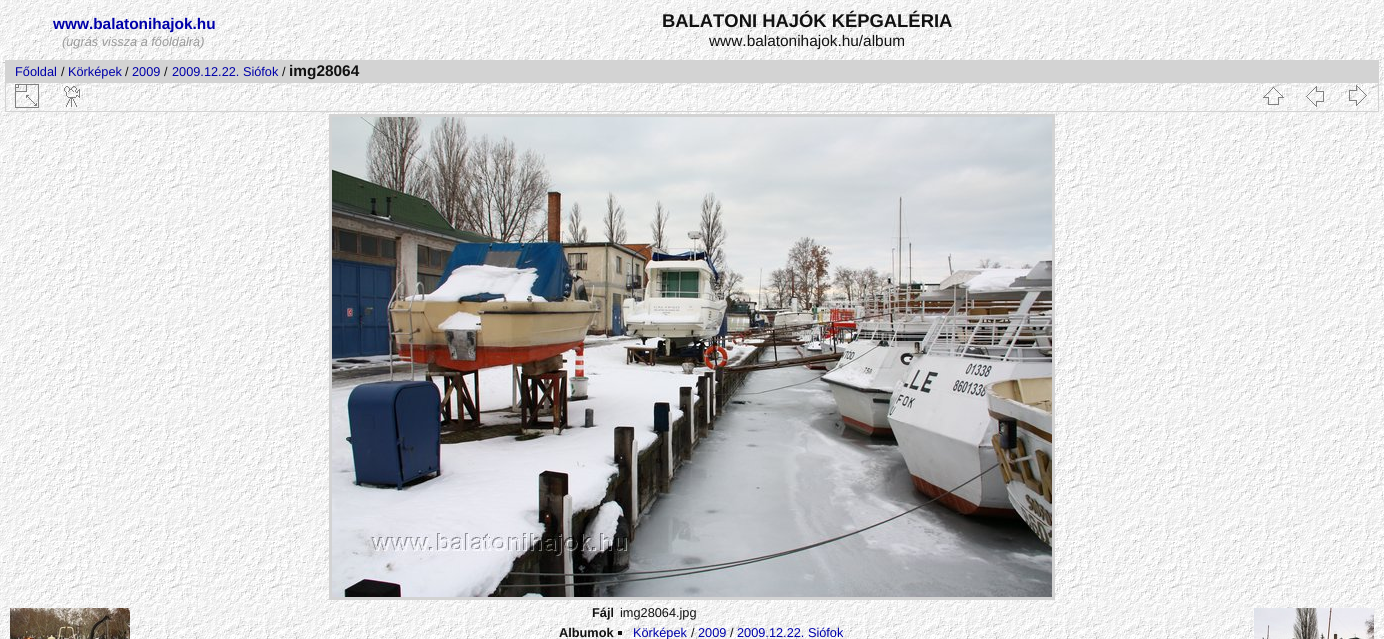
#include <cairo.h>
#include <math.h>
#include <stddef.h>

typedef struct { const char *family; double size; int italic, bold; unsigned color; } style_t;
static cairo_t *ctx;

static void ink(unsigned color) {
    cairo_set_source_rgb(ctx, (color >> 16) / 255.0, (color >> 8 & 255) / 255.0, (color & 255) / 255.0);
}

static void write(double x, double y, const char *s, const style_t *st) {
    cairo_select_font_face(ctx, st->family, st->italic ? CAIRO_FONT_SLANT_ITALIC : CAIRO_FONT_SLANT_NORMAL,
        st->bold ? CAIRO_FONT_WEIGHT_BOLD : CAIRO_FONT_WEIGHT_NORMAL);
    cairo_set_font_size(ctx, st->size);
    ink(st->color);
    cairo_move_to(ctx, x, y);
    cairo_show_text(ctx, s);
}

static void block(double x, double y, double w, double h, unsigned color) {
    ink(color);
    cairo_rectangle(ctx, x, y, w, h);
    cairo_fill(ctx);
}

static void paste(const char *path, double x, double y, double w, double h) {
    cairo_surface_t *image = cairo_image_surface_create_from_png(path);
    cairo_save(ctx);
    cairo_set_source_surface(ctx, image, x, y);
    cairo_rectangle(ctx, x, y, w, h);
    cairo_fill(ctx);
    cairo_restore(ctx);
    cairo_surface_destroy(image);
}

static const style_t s1 = {"Liberation Sans", 15.4, 0, 1, 0x0000aa};
static const style_t s2 = {"Liberation Sans", 12.75, 1, 0, 0x999999};
static const style_t s3 = {"Liberation Sans", 18.4, 0, 1, 0x111111};
static const style_t s4 = {"Liberation Sans", 15.4, 0, 0, 0x111111};
static const style_t s5 = {"Liberation Sans", 12.75, 0, 0, 0x0000aa};
static const style_t s6 = {"Liberation Sans", 12.75, 0, 0, 0x111111};
static const style_t s7 = {"Liberation Sans", 15.4, 0, 1, 0x111111};
static const style_t s8 = {"Liberation Sans", 12.75, 0, 1, 0x111111};

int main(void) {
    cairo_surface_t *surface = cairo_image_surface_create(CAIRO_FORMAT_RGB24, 1384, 639);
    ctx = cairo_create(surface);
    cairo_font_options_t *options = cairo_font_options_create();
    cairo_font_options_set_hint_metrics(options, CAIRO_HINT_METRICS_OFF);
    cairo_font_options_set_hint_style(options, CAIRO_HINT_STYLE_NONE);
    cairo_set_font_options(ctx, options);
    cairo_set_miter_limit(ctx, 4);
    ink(0xffffff);
    cairo_paint(ctx);
    paste("pic1.png", 0, 0, 1384, 639);
    write(53, 29, "www.balatonihajok.hu", &s1);
    write(62, 46, "(ugrás vissza a főoldalra)", &s2);
    write(662, 27, "BALATONI HAJÓK KÉPGALÉRIA", &s3);
    write(709, 46, "www.balatonihajok.hu/album", &s4);
    block(5, 60, 1374, 22, 0xd3d3d3);
    write(15, 76, "Főoldal", &s5);
    write(61, 76, "/", &s6);
    write(68, 76, "Körképek", &s5);
    write(125, 76, "/", &s6);
    write(132, 76, "2009", &s5);
    write(164, 76, "/", &s6);
    write(172, 76, "2009.12.22. Siófok", &s5);
    write(282, 76, "/", &s6);
    write(289, 76, "img28064", &s7);
    cairo_rectangle(ctx, 5.5, 82.5, 1373, 29);
    ink(0xd3d3d3);
    cairo_set_line_width(ctx, 1);
    cairo_stroke(ctx);
    paste("pic2.png", 15, 84, 24, 24);
    paste("pic3.png", 64, 86, 16, 21);
    paste("pic4.png", 1263, 87, 21, 18);
    paste("pic5.png", 1306, 86, 18, 21);
    paste("pic6.png", 1349, 85, 18, 21);
    cairo_rectangle(ctx, 330.5, 115.5, 723, 483);
    cairo_set_line_width(ctx, 3);
    cairo_stroke(ctx);
    paste("pic7.png", 332, 117, 720, 480);
    write(592, 617, "Fájl", &s8);
    write(620, 617, "img28064.jpg", &s6);
    write(559, 637, "Albumok", &s8);
    block(618, 631, 4, 4, 0x111111);
    write(633, 637, "Körképek", &s5);
    write(691, 637, "/", &s6);
    write(698, 637, "2009", &s5);
    write(730, 637, "/", &s6);
    write(737, 637, "2009.12.22. Siófok", &s5);
    paste("pic8.png", 10, 608, 120, 31);
    paste("pic9.png", 1254, 608, 120, 31);
    cairo_surface_write_to_png(surface, "screenshot.png");
    cairo_font_options_destroy(options);
    cairo_destroy(ctx);
    cairo_surface_destroy(surface);
    return 0;
}
